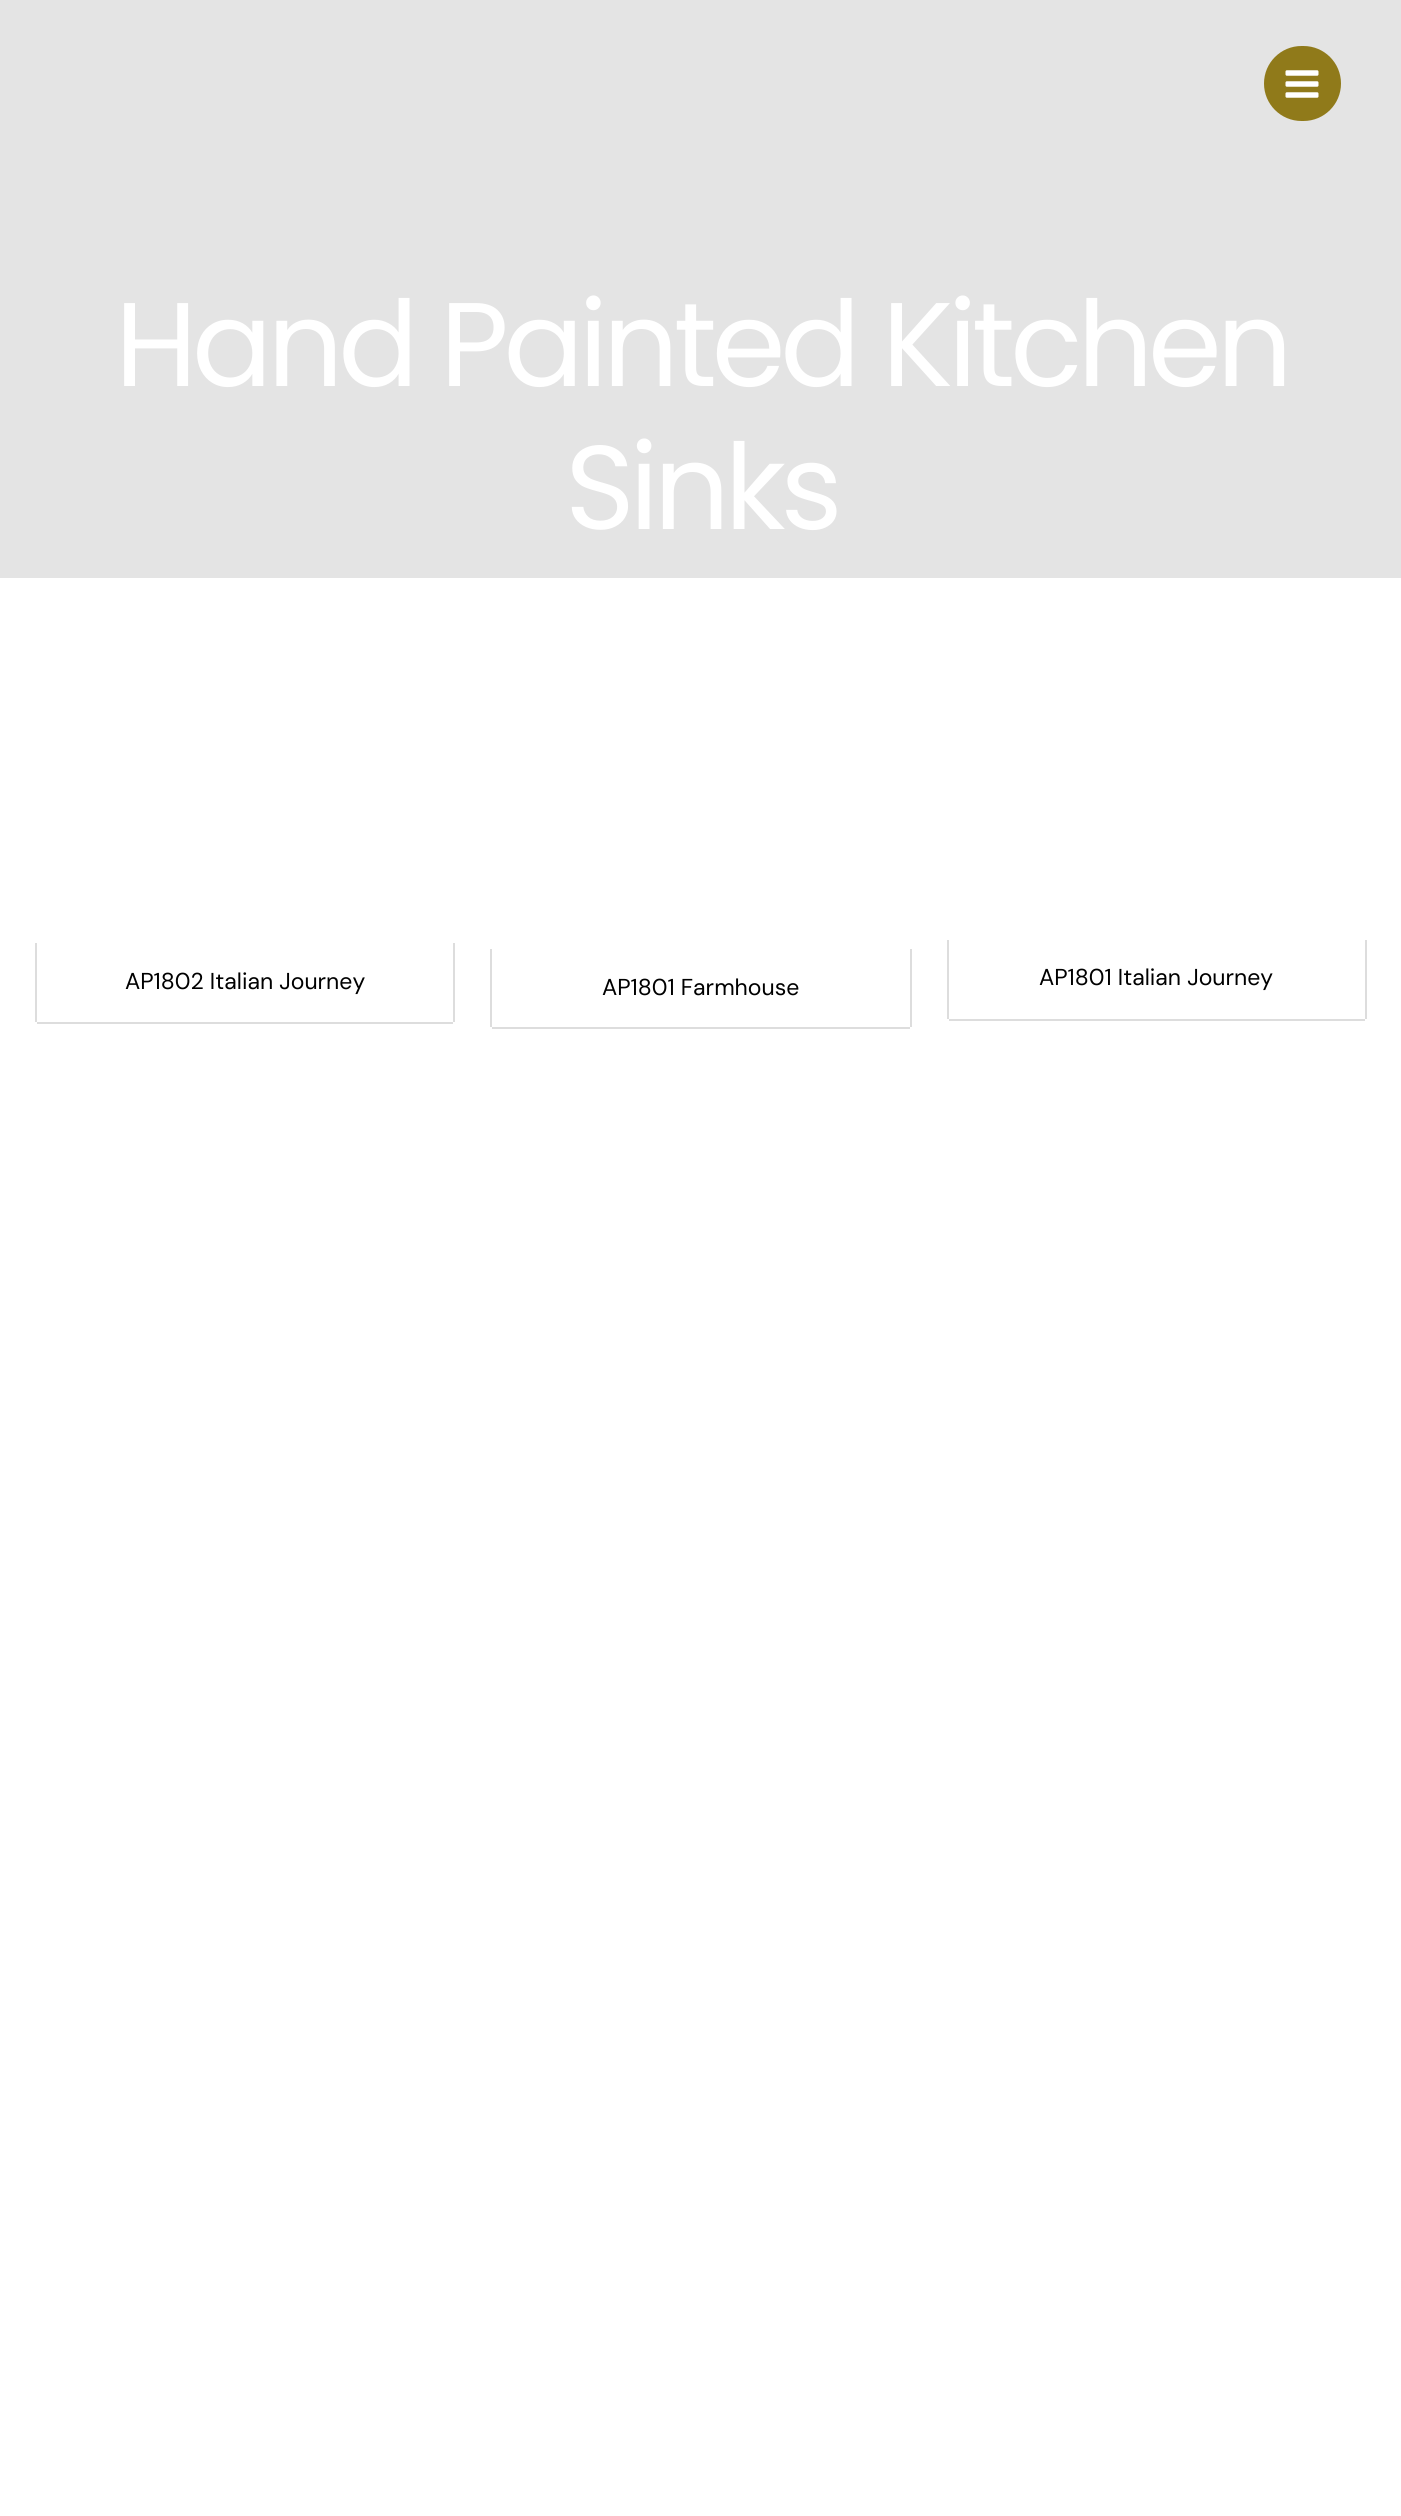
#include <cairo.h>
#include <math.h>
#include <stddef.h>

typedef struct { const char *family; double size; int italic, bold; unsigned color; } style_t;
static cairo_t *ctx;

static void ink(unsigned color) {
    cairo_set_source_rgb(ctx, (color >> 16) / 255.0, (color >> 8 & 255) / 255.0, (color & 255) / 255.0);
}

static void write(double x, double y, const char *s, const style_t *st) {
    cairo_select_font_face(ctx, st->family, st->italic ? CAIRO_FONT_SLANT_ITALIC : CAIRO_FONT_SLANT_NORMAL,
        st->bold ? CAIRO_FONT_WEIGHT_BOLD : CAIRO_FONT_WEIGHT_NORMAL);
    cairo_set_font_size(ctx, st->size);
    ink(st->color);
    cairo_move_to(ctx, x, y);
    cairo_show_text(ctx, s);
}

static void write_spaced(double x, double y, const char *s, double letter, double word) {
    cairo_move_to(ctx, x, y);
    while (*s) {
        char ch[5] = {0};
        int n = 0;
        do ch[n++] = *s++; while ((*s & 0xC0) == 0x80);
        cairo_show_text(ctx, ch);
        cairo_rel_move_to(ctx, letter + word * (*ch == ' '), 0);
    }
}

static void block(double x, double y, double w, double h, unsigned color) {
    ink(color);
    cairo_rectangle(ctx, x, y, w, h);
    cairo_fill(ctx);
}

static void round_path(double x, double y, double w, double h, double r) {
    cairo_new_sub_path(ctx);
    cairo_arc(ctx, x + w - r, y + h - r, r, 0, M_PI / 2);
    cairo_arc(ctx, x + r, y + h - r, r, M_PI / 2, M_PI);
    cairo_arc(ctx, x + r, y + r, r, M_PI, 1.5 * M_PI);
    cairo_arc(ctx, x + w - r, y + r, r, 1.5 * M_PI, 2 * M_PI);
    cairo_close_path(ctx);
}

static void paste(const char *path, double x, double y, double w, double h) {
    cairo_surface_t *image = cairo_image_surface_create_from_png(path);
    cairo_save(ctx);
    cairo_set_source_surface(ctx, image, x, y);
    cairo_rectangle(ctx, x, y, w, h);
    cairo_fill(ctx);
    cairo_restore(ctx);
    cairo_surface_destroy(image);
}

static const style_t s1 = {"DM Sans", 23, 0, 0, 0x000000};

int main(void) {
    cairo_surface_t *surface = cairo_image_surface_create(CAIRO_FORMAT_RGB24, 1401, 2516);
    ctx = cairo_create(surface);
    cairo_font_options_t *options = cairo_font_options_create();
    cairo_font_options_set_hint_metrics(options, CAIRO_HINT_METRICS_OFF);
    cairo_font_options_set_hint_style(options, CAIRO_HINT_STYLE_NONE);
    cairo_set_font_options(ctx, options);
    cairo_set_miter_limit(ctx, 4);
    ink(0xffffff);
    cairo_paint(ctx);
    block(0, 0, 1401, 578, 0xe4e4e4);
    ink(0x907a1a);
    round_path(1264, 46, 77, 75, 37.5);
    cairo_fill(ctx);
    paste("pic1.png", 1285, 70, 34, 28);
    cairo_select_font_face(ctx, "Poppins", CAIRO_FONT_SLANT_NORMAL, CAIRO_FONT_WEIGHT_NORMAL);
    cairo_set_font_size(ctx, 119);
    ink(0xffffff);
    write_spaced(115, 386, "Hand Painted Kitchen", -5.25, 0);
    write_spaced(565, 529, "Sinks", -5.25, 0);
    block(453, 943, 2, 79, 0xdddddd);
    block(37, 1022, 416, 2, 0xdddddd);
    block(35, 943, 2, 79, 0xdddddd);
    write(125, 989, "AP1802 Italian Journey", &s1);
    block(910, 949, 2, 78, 0xdddddd);
    block(492, 1027, 418, 2, 0xdddddd);
    block(490, 949, 2, 78, 0xdddddd);
    write(602, 995, "AP1801 Farmhouse", &s1);
    block(1365, 940, 2, 79, 0xdddddd);
    block(949, 1019, 416, 2, 0xdddddd);
    block(947, 940, 2, 79, 0xdddddd);
    write(1039, 985, "AP1801 Italian Journey", &s1);
    cairo_surface_write_to_png(surface, "screenshot.png");
    cairo_font_options_destroy(options);
    cairo_destroy(ctx);
    cairo_surface_destroy(surface);
    return 0;
}
